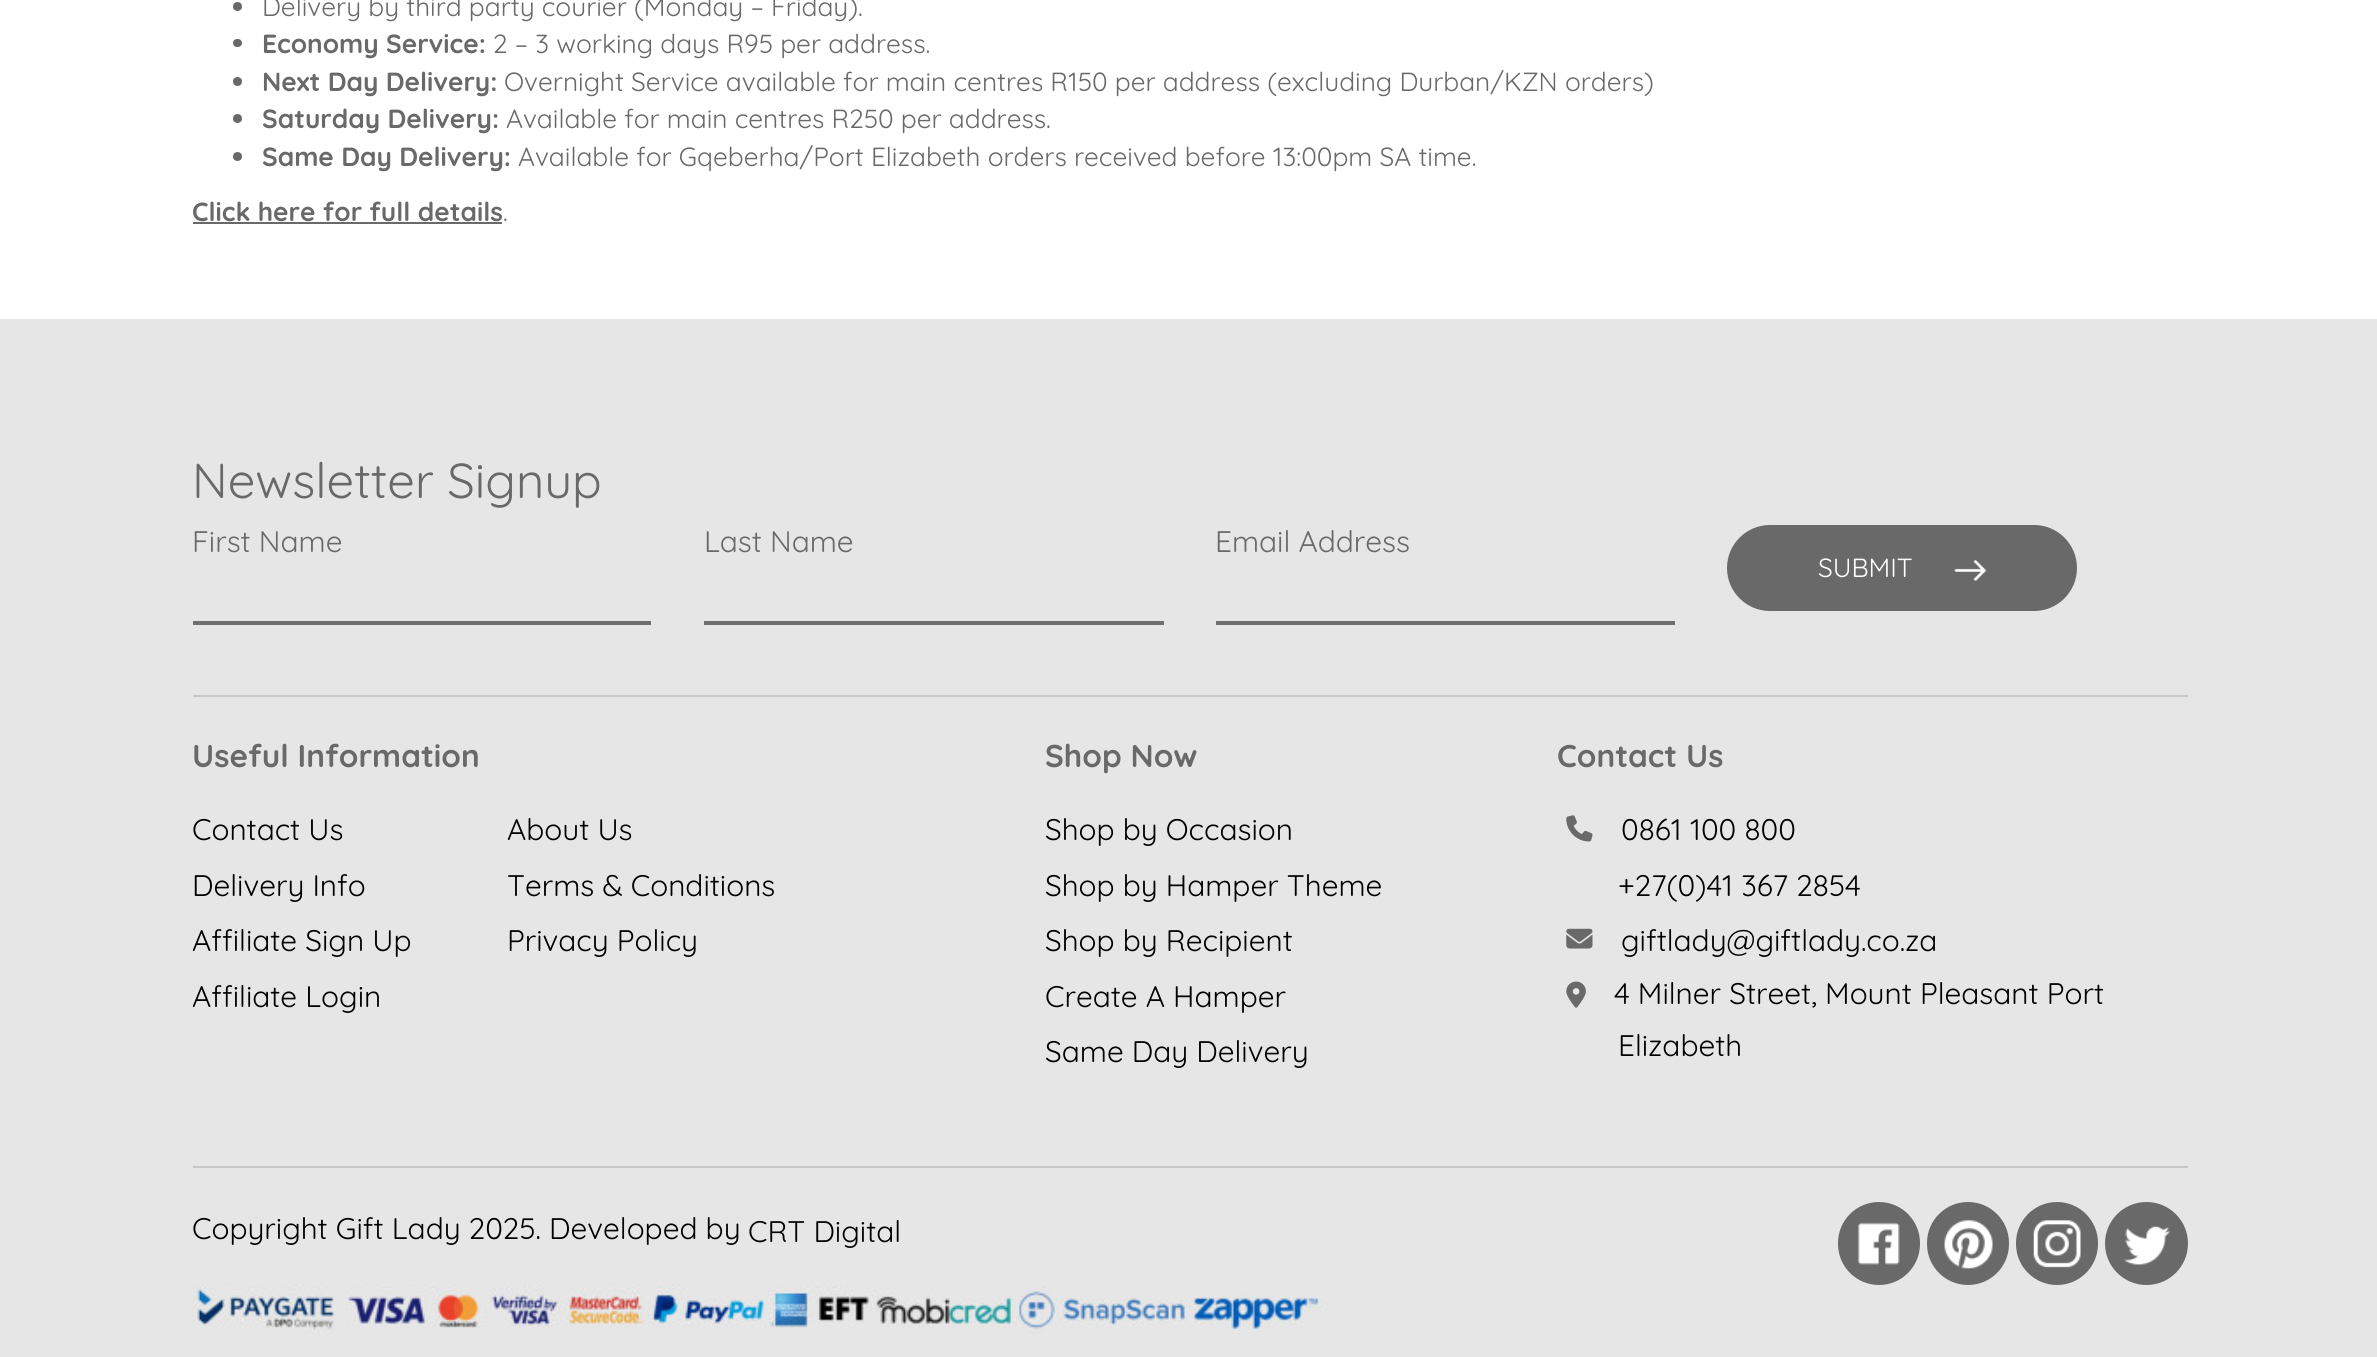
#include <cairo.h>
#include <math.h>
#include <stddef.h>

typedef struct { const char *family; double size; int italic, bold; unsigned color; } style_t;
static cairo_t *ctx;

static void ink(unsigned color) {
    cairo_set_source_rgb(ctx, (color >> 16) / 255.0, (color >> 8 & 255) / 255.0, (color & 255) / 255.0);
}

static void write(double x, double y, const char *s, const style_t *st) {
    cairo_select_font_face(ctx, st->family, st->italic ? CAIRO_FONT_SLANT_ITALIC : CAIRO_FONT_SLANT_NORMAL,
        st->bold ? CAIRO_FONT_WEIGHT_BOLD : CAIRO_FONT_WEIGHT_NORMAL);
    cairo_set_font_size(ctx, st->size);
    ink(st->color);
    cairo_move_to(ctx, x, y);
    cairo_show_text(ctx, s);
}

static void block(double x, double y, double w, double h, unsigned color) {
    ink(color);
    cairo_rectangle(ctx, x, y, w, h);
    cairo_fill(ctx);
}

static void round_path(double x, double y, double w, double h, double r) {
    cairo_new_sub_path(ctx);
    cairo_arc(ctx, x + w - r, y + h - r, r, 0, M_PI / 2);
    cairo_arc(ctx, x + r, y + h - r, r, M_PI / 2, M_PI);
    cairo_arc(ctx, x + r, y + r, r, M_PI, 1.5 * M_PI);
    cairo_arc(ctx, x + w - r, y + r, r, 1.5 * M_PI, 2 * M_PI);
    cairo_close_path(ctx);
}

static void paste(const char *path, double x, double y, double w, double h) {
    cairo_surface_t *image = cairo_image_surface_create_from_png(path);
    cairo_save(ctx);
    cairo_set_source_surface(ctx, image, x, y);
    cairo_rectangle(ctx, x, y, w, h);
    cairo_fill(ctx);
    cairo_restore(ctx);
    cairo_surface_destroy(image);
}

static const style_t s1 = {"Quicksand", 26.25, 0, 0, 0x696969};
static const style_t s2 = {"Quicksand", 26.25, 0, 1, 0x696969};
static const style_t s3 = {"Quicksand", 49, 0, 0, 0x696969};
static const style_t s4 = {"Quicksand", 29.75, 0, 0, 0x696969};
static const style_t s5 = {"Quicksand", 26.25, 0, 0, 0xffffff};
static const style_t s6 = {"Quicksand", 31.5, 0, 1, 0x696969};
static const style_t s7 = {"Quicksand", 29.75, 0, 0, 0x000000};

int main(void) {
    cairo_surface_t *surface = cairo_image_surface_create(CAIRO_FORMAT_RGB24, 2377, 1357);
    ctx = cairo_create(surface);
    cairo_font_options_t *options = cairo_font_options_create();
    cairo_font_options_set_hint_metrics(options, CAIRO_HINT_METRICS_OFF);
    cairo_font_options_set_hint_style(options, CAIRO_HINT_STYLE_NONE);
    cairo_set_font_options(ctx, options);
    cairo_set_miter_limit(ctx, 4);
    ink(0xffffff);
    cairo_paint(ctx);
    ink(0x696969);
    cairo_arc(ctx, 237.5, 6.5, 4.5, 0, 2 * M_PI);
    cairo_fill(ctx);
    write(262, 16, "Delivery by third party courier (Monday – Friday).", &s1);
    round_path(233, 39, 9, 8, 4);
    cairo_fill(ctx);
    write(262, 53, "Economy Service:", &s2);
    write(493, 53, "2 – 3 working days R95 per address.", &s1);
    cairo_new_path(ctx);
    cairo_arc(ctx, 237.5, 81.5, 4.5, 0, 2 * M_PI);
    cairo_fill(ctx);
    write(262, 91, "Next Day Delivery:", &s2);
    write(504, 91, "Overnight Service available for main centres R150 per address (excluding Durban/KZN orders)", &s1);
    cairo_new_path(ctx);
    cairo_arc(ctx, 237.5, 118.5, 4.5, 0, 2 * M_PI);
    cairo_fill(ctx);
    write(262, 128, "Saturday Delivery:", &s2);
    write(506, 128, "Available for main centres R250 per address.", &s1);
    cairo_new_path(ctx);
    cairo_arc(ctx, 237.5, 156.5, 4.5, 0, 2 * M_PI);
    cairo_fill(ctx);
    write(262, 166, "Same Day Delivery:", &s2);
    write(518, 166, "Available for Gqeberha/Port Elizabeth orders received before 13:00pm SA time.", &s1);
    write(192, 221, "Click here for full details", &s2);
    write(503, 221, ".", &s1);
    block(193, 222, 309, 2, 0x696969);
    block(0, 319, 2377, 1038, 0xe6e6e6);
    write(192, 498, "Newsletter Signup", &s3);
    write(192, 552, "First Name", &s4);
    block(193, 621, 458, 4, 0x707070);
    write(704, 552, "Last Name", &s4);
    block(704, 621, 460, 4, 0x707070);
    write(1215, 552, "Email Address", &s4);
    block(1216, 621, 459, 4, 0x707070);
    ink(0x696969);
    round_path(1727, 525, 350, 86, 43);
    cairo_fill(ctx);
    write(1818, 577, "SUBMIT", &s5);
    paste("pic1.png", 1954, 560, 33, 21);
    block(193, 695, 1995, 2, 0xc7c7c7);
    write(192, 767, "Useful Information", &s6);
    write(192, 840, "Contact Us", &s7);
    write(192, 896, "Delivery Info", &s7);
    write(192, 951, "Affiliate Sign Up", &s7);
    write(192, 1007, "Affiliate Login", &s7);
    write(507, 840, "About Us", &s7);
    write(507, 896, "Terms & Conditions", &s7);
    write(507, 951, "Privacy Policy", &s7);
    write(1045, 767, "Shop Now", &s6);
    write(1045, 840, "Shop by Occasion", &s7);
    write(1045, 896, "Shop by Hamper Theme", &s7);
    write(1045, 951, "Shop by Recipient", &s7);
    write(1045, 1007, "Create A Hamper", &s7);
    write(1045, 1062, "Same Day Delivery", &s7);
    write(1557, 767, "Contact Us", &s6);
    paste("pic2.png", 1566, 815, 27, 27);
    write(1621, 840, "0861 100 800", &s7);
    write(1618, 896, "+27(0)41 367 2854", &s7);
    paste("pic3.png", 1566, 928, 27, 21);
    write(1621, 951, "giftlady@giftlady.co.za", &s7);
    paste("pic4.png", 1566, 981, 20, 27);
    write(1614, 1004, "4 Milner Street, Mount Pleasant Port", &s7);
    write(1618, 1056, "Elizabeth", &s7);
    block(193, 1166, 1995, 2, 0xc7c7c7);
    write(192, 1239, "Copyright Gift Lady 2025. Developed by", &s7);
    write(748, 1242, "CRT Digital", &s7);
    ink(0x696969);
    round_path(1838, 1202, 82, 83, 41);
    cairo_fill(ctx);
    round_path(1927, 1202, 82, 83, 41);
    cairo_fill(ctx);
    round_path(2016, 1202, 82, 83, 41);
    cairo_fill(ctx);
    cairo_arc(ctx, 2146.5, 1243.5, 41.5, 0, 2 * M_PI);
    cairo_fill(ctx);
    paste("pic5.png", 1857, 1222, 43, 43);
    paste("pic6.png", 1944, 1220, 49, 49);
    paste("pic7.png", 2033, 1220, 48, 48);
    paste("pic8.png", 2124, 1226, 46, 39);
    paste("pic9.png", 192, 1284, 1138, 50);
    cairo_surface_write_to_png(surface, "screenshot.png");
    cairo_font_options_destroy(options);
    cairo_destroy(ctx);
    cairo_surface_destroy(surface);
    return 0;
}
